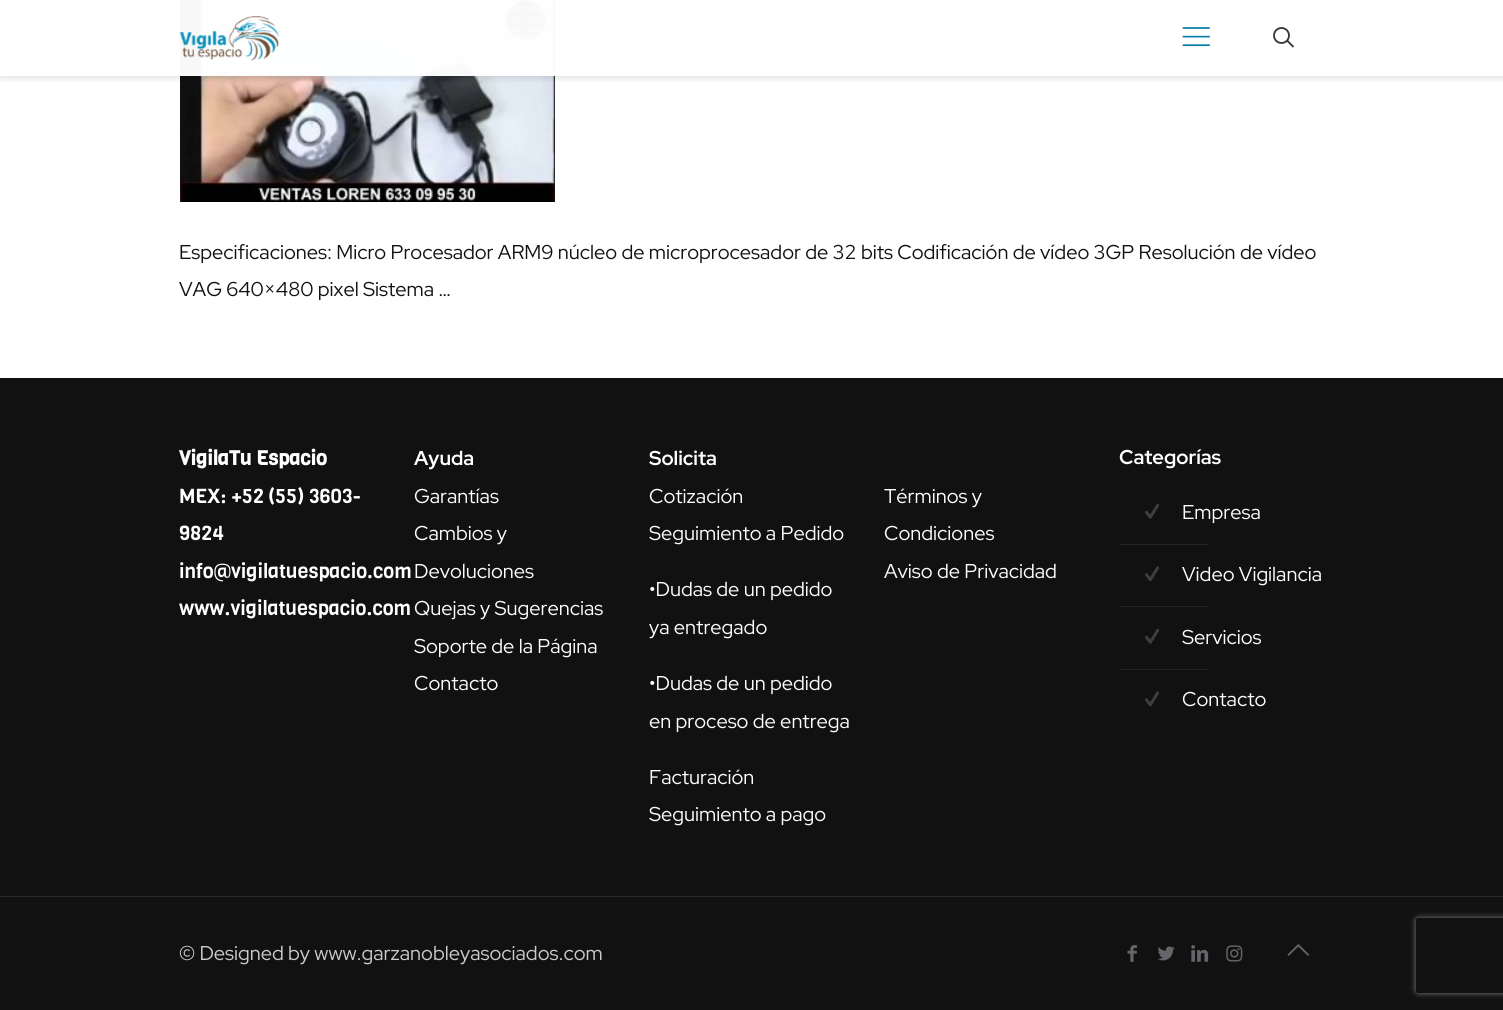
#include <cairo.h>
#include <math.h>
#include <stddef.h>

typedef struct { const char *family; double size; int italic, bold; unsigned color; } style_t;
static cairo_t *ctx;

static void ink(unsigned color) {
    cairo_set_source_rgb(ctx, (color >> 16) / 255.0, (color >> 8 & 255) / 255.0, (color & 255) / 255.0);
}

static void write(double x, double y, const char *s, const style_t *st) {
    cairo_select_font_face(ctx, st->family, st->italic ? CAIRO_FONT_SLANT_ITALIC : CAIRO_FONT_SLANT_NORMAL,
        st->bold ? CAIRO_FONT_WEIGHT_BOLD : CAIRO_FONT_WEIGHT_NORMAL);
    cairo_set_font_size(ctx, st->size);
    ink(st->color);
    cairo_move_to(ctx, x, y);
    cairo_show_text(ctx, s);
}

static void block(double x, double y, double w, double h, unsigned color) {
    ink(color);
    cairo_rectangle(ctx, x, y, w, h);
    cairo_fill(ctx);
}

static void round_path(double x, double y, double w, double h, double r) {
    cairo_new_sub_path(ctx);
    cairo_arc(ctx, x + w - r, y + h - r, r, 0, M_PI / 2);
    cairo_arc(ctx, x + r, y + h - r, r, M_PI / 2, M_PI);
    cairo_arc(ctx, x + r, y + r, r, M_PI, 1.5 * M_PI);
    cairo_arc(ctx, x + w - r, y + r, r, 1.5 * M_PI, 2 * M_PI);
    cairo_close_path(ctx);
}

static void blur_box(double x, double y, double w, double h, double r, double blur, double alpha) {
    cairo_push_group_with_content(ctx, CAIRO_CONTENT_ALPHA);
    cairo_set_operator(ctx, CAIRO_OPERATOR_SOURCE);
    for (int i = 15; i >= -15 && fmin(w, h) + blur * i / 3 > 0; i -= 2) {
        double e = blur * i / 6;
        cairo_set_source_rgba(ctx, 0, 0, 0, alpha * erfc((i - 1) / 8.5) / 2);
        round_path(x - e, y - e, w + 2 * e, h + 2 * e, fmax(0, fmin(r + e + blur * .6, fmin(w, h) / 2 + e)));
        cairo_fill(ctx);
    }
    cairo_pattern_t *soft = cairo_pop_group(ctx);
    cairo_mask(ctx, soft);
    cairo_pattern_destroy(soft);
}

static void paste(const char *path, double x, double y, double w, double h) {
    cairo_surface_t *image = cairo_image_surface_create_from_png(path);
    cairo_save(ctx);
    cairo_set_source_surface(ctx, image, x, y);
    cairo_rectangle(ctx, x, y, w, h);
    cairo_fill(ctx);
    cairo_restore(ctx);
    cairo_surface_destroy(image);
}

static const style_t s1 = {"Red Hat Display", 20, 0, 0, 0x111111};
static const style_t s2 = {"Viga", 20, 0, 1, 0xffffff};
static const style_t s3 = {"Viga", 20, 0, 0, 0xffffff};
static const style_t s4 = {"Red Hat Display", 20, 0, 1, 0xffffff};
static const style_t s5 = {"Red Hat Display", 20, 0, 0, 0xffffff};
static const style_t s6 = {"Red Hat Display", 20, 0, 0, 0xcccccc};

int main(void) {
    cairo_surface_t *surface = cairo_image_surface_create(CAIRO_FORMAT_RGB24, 1503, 1010);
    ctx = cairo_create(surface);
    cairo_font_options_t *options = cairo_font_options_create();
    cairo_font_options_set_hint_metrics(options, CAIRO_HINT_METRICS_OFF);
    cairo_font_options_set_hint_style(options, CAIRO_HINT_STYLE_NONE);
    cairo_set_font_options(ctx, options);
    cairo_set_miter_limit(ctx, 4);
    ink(0xffffff);
    cairo_paint(ctx);
    paste("pic3.png", 180, 0, 375, 202);
    cairo_save(ctx);
    cairo_rectangle(ctx, 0, 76, 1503, 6);
    cairo_clip(ctx);
    ink(0x000000);
    blur_box(0, 3, 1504, 76, 0, 3, 0.1);
    cairo_restore(ctx);
    cairo_set_source_rgba(ctx, 1, 1, 1, 0.97);
    cairo_rectangle(ctx, 180, 0, 375, 76);
    cairo_fill(ctx);
    paste("pic1.png", 179, 16, 100, 45);
    paste("pic2.png", 1182, 27, 28, 20);
    cairo_arc(ctx, 1281.5, 35.5, 7.5, 0, 2 * M_PI);
    ink(0x393939);
    cairo_set_line_width(ctx, 1.9);
    cairo_stroke(ctx);
    cairo_new_path(ctx);
    cairo_move_to(ctx, 1287, 40.5);
    cairo_line_to(ctx, 1293.5, 47);
    cairo_stroke(ctx);
    write(179, 259, "Especificaciones: Micro Procesador ARM9 núcleo de microprocesador de 32 bits Codificación de vídeo 3GP Resolución de vídeo", &s1);
    write(179, 296, "VAG 640×480 pixel Sistema …", &s1);
    block(0, 378, 1503, 632, 0x111111);
    write(179, 465, "VigilaTu Espacio", &s2);
    write(179, 503, "MEX: +52 (55) 3603-", &s3);
    write(179, 540, "9824", &s3);
    write(179, 578, "info@vigilatuespacio.com", &s3);
    write(179, 615, "www.vigilatuespacio.com", &s3);
    write(414, 465, "Ayuda", &s4);
    write(414, 503, "Garantías", &s5);
    write(414, 540, "Cambios y", &s5);
    write(414, 578, "Devoluciones", &s5);
    write(414, 615, "Quejas y Sugerencias", &s5);
    write(414, 653, "Soporte de la Página", &s5);
    write(414, 690, "Contacto", &s5);
    write(649, 465, "Solicita", &s4);
    write(649, 503, "Cotización", &s5);
    write(649, 540, "Seguimiento a Pedido", &s5);
    write(649, 596, "•Dudas de un pedido", &s5);
    write(649, 634, "ya entregado", &s5);
    write(649, 690, "•Dudas de un pedido", &s5);
    write(649, 728, "en proceso de entrega", &s5);
    write(649, 784, "Facturación", &s5);
    write(649, 821, "Seguimiento a pago", &s5);
    write(884, 503, "Términos y", &s5);
    write(884, 540, "Condiciones", &s5);
    write(884, 578, "Aviso de Privacidad", &s5);
    write(1119, 464, "Categorías", &s4);
    paste("pic4.png", 1145, 504, 14, 15);
    write(1182, 519, "Empresa", &s5);
    block(1120, 544, 88, 1, 0x242424);
    paste("pic5.png", 1145, 566, 14, 16);
    write(1182, 581, "Video Vigilancia", &s5);
    block(1120, 606, 88, 1, 0x242424);
    paste("pic4.png", 1145, 629, 14, 15);
    write(1182, 644, "Servicios", &s5);
    block(1120, 669, 88, 1, 0x242424);
    paste("pic5.png", 1145, 691, 14, 16);
    write(1182, 706, "Contacto", &s5);
    block(0, 896, 1503, 1, 0x292929);
    write(179, 960, "© Designed by www.garzanobleyasociados.com", &s6);
    paste("pic6.png", 1127, 945, 10, 17);
    paste("pic7.png", 1158, 946, 17, 15);
    paste("pic8.png", 1191, 945, 18, 17);
    paste("pic9.png", 1226, 945, 17, 17);
    paste("pic10.png", 1287, 944, 22, 12);
    cairo_save(ctx);
    cairo_set_fill_rule(ctx, CAIRO_FILL_RULE_EVEN_ODD);
    cairo_new_path(ctx);
    cairo_move_to(ctx, 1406, 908);
    cairo_line_to(ctx, 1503, 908);
    cairo_line_to(ctx, 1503, 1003);
    cairo_line_to(ctx, 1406, 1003);
    cairo_close_path(ctx);
    cairo_move_to(ctx, 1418.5, 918);
    cairo_line_to(ctx, 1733.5, 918);
    cairo_curve_to(ctx, 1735, 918, 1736, 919, 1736, 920.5);
    cairo_line_to(ctx, 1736, 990.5);
    cairo_curve_to(ctx, 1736, 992, 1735, 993, 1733.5, 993);
    cairo_line_to(ctx, 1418.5, 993);
    cairo_curve_to(ctx, 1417, 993, 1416, 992, 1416, 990.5);
    cairo_line_to(ctx, 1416, 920.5);
    cairo_curve_to(ctx, 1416, 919, 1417, 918, 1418.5, 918);
    cairo_close_path(ctx);
    cairo_clip(ctx);
    ink(0x808080);
    blur_box(1416, 918, 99, 75, 2.5, 3, 1);
    cairo_restore(ctx);
    cairo_surface_write_to_png(surface, "screenshot.png");
    cairo_font_options_destroy(options);
    cairo_destroy(ctx);
    cairo_surface_destroy(surface);
    return 0;
}
